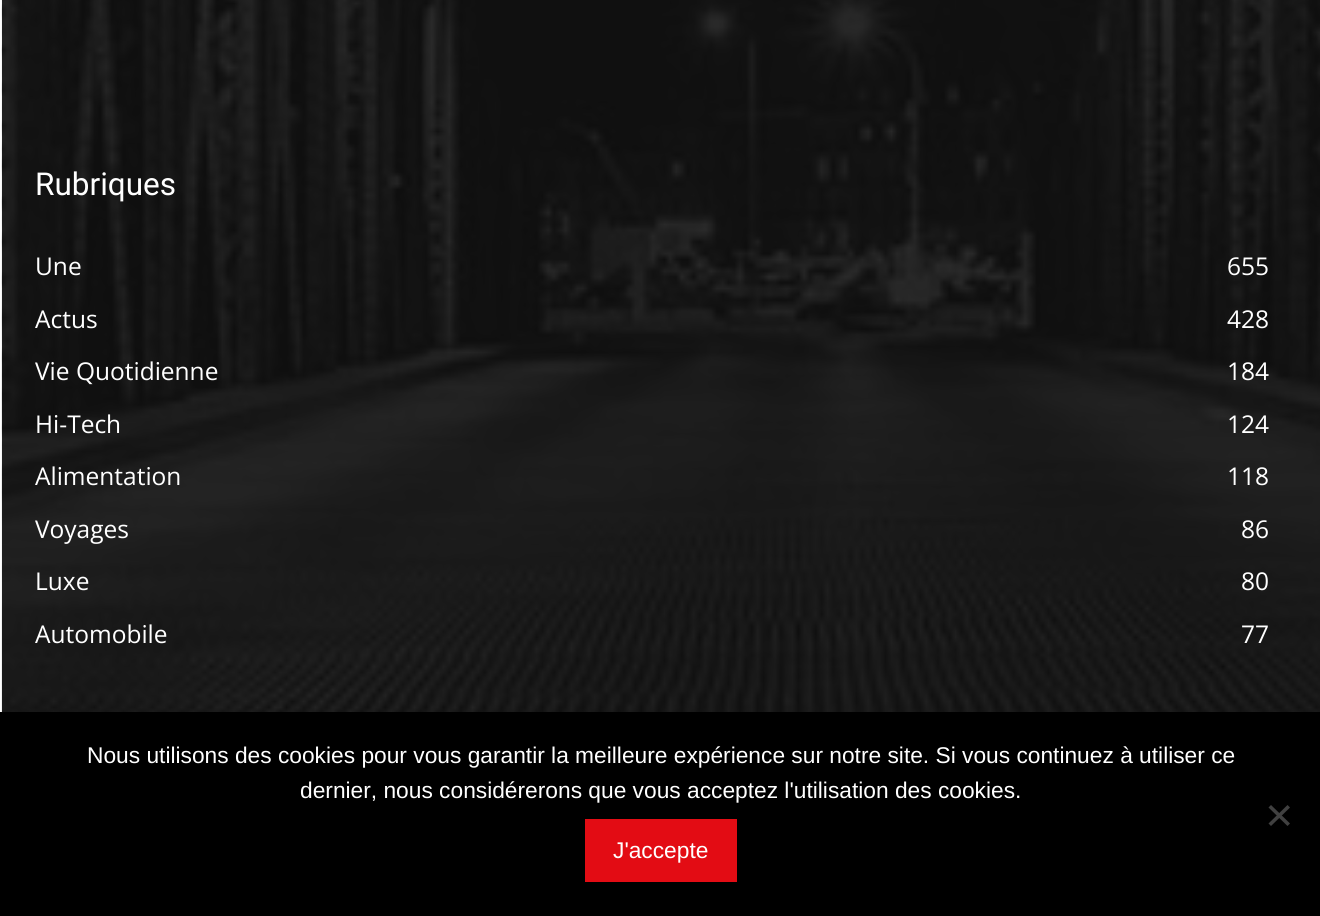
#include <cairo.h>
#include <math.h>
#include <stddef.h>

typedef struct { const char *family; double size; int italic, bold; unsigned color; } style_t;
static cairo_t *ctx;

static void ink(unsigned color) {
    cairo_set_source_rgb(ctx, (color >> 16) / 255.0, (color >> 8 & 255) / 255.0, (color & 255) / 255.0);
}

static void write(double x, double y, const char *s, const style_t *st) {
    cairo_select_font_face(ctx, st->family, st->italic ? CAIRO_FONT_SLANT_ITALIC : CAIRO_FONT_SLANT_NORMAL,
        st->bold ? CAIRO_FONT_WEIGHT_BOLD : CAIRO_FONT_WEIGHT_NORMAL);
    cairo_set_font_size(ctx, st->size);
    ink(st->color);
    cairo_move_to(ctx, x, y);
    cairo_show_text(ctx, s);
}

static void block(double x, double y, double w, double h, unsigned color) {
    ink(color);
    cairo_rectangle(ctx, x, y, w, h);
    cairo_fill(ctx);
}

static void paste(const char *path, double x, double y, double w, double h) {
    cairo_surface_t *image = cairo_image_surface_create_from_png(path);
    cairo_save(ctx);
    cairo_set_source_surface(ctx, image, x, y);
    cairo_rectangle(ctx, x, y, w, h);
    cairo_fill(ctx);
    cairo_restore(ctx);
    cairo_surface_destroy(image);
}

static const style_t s1 = {"Roboto", 31.5, 0, 0, 0xffffff};
static const style_t s2 = {"Open Sans", 24.5, 0, 0, 0xffffff};
static const style_t s3 = {"Liberation Sans", 22.75, 0, 0, 0xffffff};

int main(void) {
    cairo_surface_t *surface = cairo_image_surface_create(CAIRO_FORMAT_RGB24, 1320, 916);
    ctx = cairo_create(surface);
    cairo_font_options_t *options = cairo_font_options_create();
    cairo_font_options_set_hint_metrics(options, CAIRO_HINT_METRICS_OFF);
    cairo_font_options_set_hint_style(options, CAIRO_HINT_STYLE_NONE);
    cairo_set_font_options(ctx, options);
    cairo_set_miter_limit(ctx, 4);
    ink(0xffffff);
    cairo_paint(ctx);
    block(2, 0, 1318, 712, 0x111111);
    paste("pic1.png", 1, 0, 1319, 712);
    write(35, 195, "Rubriques", &s1);
    write(35, 275, "Une", &s2);
    write(1227, 275, "655", &s2);
    write(35, 328, "Actus", &s2);
    write(1227, 328, "428", &s2);
    write(35, 380, "Vie Quotidienne", &s2);
    write(1227, 380, "184", &s2);
    write(35, 433, "Hi-Tech", &s2);
    write(1227, 433, "124", &s2);
    write(35, 485, "Alimentation", &s2);
    write(1227, 485, "118", &s2);
    write(35, 538, "Voyages", &s2);
    write(1241, 538, "86", &s2);
    write(35, 590, "Luxe", &s2);
    write(1241, 590, "80", &s2);
    write(35, 643, "Automobile", &s2);
    write(1241, 643, "77", &s2);
    block(0, 712, 1320, 204, 0x000000);
    write(87, 763, "Nous utilisons des cookies pour vous garantir la meilleure expérience sur notre site. Si vous continuez à utiliser ce", &s3);
    write(300, 798, "dernier, nous considérerons que vous acceptez l'utilisation des cookies.", &s3);
    ink(0x404040);
    cairo_new_path(ctx);
    cairo_move_to(ctx, 1287.5, 805);
    cairo_line_to(ctx, 1290, 807.5);
    cairo_line_to(ctx, 1271, 826);
    cairo_line_to(ctx, 1268.5, 823.5);
    cairo_close_path(ctx);
    cairo_fill(ctx);
    cairo_new_path(ctx);
    cairo_move_to(ctx, 1268.5, 807.5);
    cairo_line_to(ctx, 1271, 805);
    cairo_line_to(ctx, 1290, 823.5);
    cairo_line_to(ctx, 1287.5, 826);
    cairo_close_path(ctx);
    cairo_fill(ctx);
    block(585, 819, 152, 63, 0xe30c14);
    write(613, 858, "J'accepte", &s3);
    cairo_surface_write_to_png(surface, "screenshot.png");
    cairo_font_options_destroy(options);
    cairo_destroy(ctx);
    cairo_surface_destroy(surface);
    return 0;
}
